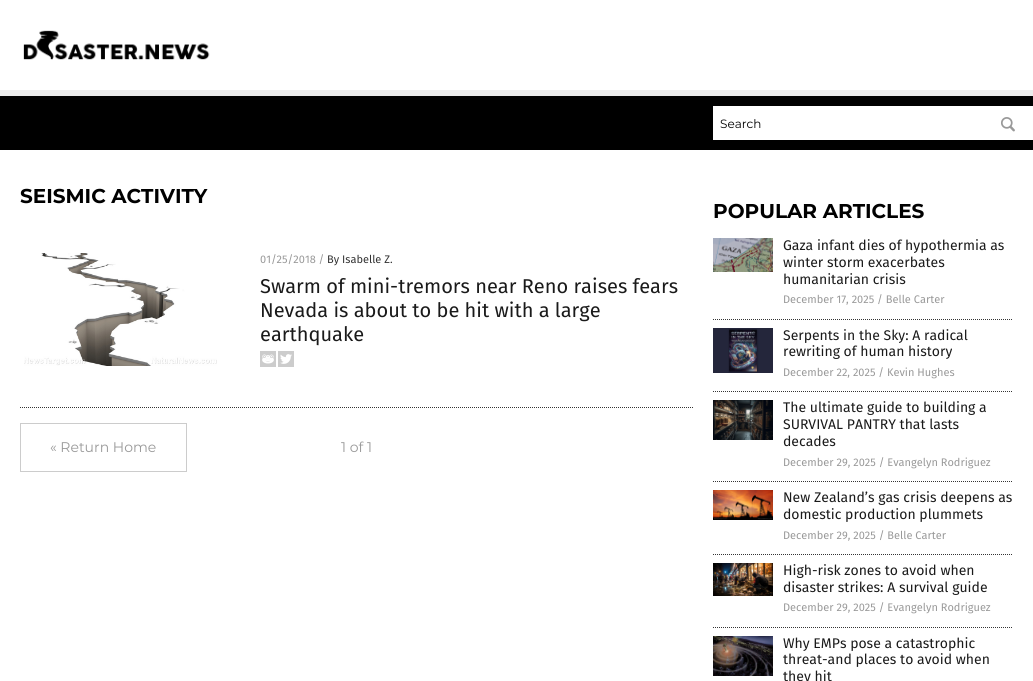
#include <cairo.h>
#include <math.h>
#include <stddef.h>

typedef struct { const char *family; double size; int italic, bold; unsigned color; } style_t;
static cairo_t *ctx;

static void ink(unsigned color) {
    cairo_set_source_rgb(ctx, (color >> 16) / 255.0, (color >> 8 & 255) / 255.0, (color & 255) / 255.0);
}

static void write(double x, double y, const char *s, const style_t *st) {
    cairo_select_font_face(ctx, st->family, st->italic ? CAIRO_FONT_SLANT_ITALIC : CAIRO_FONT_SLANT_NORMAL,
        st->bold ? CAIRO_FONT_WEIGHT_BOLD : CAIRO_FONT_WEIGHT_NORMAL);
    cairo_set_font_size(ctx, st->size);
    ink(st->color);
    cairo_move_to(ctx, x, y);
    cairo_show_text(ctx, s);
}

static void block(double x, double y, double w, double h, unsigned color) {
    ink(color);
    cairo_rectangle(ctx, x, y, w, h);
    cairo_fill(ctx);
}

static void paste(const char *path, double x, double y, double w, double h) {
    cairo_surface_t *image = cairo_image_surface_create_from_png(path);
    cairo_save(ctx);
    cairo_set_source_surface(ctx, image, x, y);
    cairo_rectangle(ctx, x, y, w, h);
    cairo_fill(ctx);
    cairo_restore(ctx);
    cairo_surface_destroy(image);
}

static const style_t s1 = {"Montserrat", 12, 0, 0, 0x000000};
static const style_t s2 = {"Montserrat", 20, 0, 1, 0x000000};
static const style_t s3 = {"Fira Sans", 11, 0, 0, 0x999999};
static const style_t s4 = {"Fira Sans", 11, 0, 0, 0x333333};
static const style_t s5 = {"Fira Sans", 20, 0, 0, 0x1a1a1a};
static const style_t s6 = {"Montserrat", 14, 0, 0, 0x999999};
static const style_t s7 = {"Fira Sans", 14, 0, 0, 0x1a1a1a};

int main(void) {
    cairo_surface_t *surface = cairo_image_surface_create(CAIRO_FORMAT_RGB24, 1033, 681);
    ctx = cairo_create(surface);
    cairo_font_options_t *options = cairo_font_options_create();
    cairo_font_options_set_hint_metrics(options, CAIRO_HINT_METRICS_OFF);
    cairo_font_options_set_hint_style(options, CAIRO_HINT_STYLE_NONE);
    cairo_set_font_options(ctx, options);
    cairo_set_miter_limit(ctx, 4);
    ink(0x000000);
    cairo_paint(ctx);
    block(0, 0, 1033, 90, 0xffffff);
    paste("pic1.png", 23, 30, 187, 30);
    block(0, 90, 1033, 6, 0xececec);
    block(713, 106, 320, 34, 0xffffff);
    write(720, 128, "Search", &s1);
    paste("pic2.png", 1001, 117, 14, 15);
    block(0, 150, 1033, 531, 0xffffff);
    write(20, 203, "SEISMIC ACTIVITY", &s2);
    cairo_new_path(ctx);
    cairo_move_to(ctx, 20, 407.5);
    cairo_line_to(ctx, 693, 407.5);
    ink(0x343434);
    cairo_set_line_width(ctx, 1);
    cairo_set_dash(ctx, (double[]){1, 1}, 2, 0);
    cairo_stroke(ctx);
    paste("pic3.png", 24, 253, 193, 113);
    write(260, 263, "01/25/2018 /", &s3);
    write(327, 263, "By Isabelle Z.", &s4);
    write(260, 293, "Swarm of mini-tremors near Reno raises fears", &s5);
    write(260, 317, "Nevada is about to be hit with a large", &s5);
    write(260, 341, "earthquake", &s5);
    paste("pic4.png", 260, 351, 16, 16);
    paste("pic5.png", 278, 351, 16, 16);
    cairo_rectangle(ctx, 20.5, 423.5, 166, 48);
    ink(0xcccccc);
    cairo_set_dash(ctx, NULL, 0, 0);
    cairo_stroke(ctx);
    write(50, 452, "« Return Home", &s6);
    write(341, 452, "1 of 1", &s6);
    write(713, 218, "POPULAR ARTICLES", &s2);
    cairo_new_path(ctx);
    cairo_move_to(ctx, 713, 319.5);
    cairo_line_to(ctx, 1013, 319.5);
    ink(0x343434);
    cairo_set_dash(ctx, (double[]){1, 1}, 2, 0);
    cairo_stroke(ctx);
    paste("pic6.png", 713, 238, 60, 34);
    write(783, 250, "Gaza infant dies of hypothermia as", &s7);
    write(783, 267, "winter storm exacerbates", &s7);
    write(783, 284, "humanitarian crisis", &s7);
    write(783, 303, "December 17, 2025 / Belle Carter", &s3);
    cairo_new_path(ctx);
    cairo_move_to(ctx, 713, 391.5);
    cairo_line_to(ctx, 1013, 391.5);
    ink(0x343434);
    cairo_stroke(ctx);
    paste("pic7.png", 713, 328, 60, 45);
    write(783, 340, "Serpents in the Sky: A radical", &s7);
    write(783, 356, "rewriting of human history", &s7);
    write(783, 376, "December 22, 2025 / Kevin Hughes", &s3);
    cairo_new_path(ctx);
    cairo_move_to(ctx, 713, 481.5);
    cairo_line_to(ctx, 1013, 481.5);
    ink(0x343434);
    cairo_stroke(ctx);
    paste("pic8.png", 713, 400, 60, 40);
    write(783, 412, "The ultimate guide to building a", &s7);
    write(783, 429, "SURVIVAL PANTRY that lasts", &s7);
    write(783, 446, "decades", &s7);
    write(783, 466, "December 29, 2025 / Evangelyn Rodriguez", &s3);
    cairo_new_path(ctx);
    cairo_move_to(ctx, 713, 554.5);
    cairo_line_to(ctx, 1013, 554.5);
    ink(0x343434);
    cairo_stroke(ctx);
    paste("pic9.png", 713, 490, 60, 30);
    write(783, 502, "New Zealand’s gas crisis deepens as", &s7);
    write(783, 519, "domestic production plummets", &s7);
    write(783, 539, "December 29, 2025 / Belle Carter", &s3);
    cairo_new_path(ctx);
    cairo_move_to(ctx, 713, 627.5);
    cairo_line_to(ctx, 1013, 627.5);
    ink(0x343434);
    cairo_stroke(ctx);
    paste("pic10.png", 713, 563, 60, 33);
    write(783, 575, "High-risk zones to avoid when", &s7);
    write(783, 592, "disaster strikes: A survival guide", &s7);
    write(783, 611, "December 29, 2025 / Evangelyn Rodriguez", &s3);
    paste("pic11.png", 713, 636, 60, 40);
    write(783, 648, "Why EMPs pose a catastrophic", &s7);
    write(783, 664, "threat-and places to avoid when", &s7);
    write(783, 681, "they hit", &s7);
    cairo_surface_write_to_png(surface, "screenshot.png");
    cairo_font_options_destroy(options);
    cairo_destroy(ctx);
    cairo_surface_destroy(surface);
    return 0;
}
